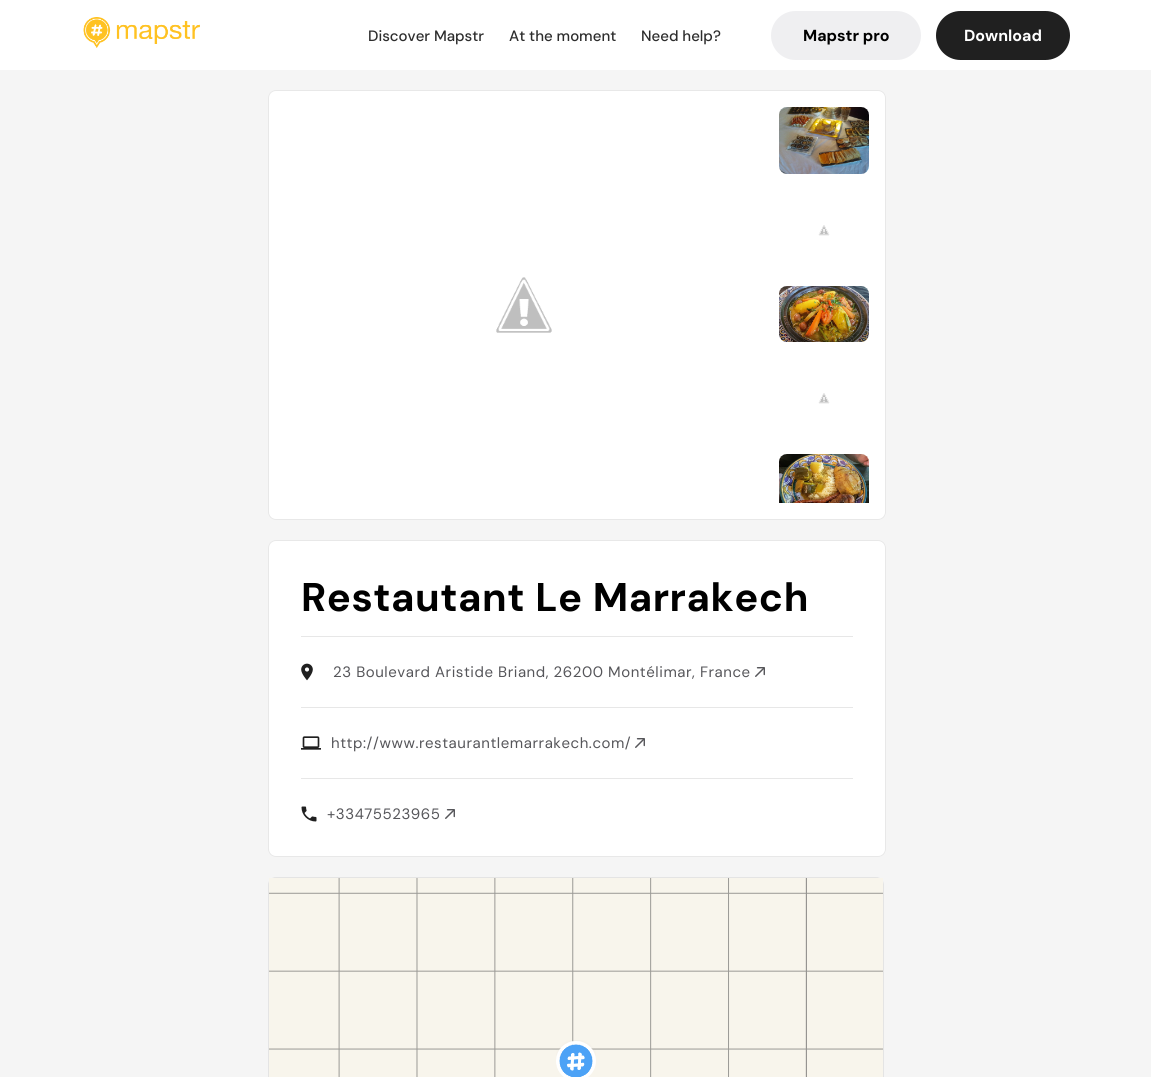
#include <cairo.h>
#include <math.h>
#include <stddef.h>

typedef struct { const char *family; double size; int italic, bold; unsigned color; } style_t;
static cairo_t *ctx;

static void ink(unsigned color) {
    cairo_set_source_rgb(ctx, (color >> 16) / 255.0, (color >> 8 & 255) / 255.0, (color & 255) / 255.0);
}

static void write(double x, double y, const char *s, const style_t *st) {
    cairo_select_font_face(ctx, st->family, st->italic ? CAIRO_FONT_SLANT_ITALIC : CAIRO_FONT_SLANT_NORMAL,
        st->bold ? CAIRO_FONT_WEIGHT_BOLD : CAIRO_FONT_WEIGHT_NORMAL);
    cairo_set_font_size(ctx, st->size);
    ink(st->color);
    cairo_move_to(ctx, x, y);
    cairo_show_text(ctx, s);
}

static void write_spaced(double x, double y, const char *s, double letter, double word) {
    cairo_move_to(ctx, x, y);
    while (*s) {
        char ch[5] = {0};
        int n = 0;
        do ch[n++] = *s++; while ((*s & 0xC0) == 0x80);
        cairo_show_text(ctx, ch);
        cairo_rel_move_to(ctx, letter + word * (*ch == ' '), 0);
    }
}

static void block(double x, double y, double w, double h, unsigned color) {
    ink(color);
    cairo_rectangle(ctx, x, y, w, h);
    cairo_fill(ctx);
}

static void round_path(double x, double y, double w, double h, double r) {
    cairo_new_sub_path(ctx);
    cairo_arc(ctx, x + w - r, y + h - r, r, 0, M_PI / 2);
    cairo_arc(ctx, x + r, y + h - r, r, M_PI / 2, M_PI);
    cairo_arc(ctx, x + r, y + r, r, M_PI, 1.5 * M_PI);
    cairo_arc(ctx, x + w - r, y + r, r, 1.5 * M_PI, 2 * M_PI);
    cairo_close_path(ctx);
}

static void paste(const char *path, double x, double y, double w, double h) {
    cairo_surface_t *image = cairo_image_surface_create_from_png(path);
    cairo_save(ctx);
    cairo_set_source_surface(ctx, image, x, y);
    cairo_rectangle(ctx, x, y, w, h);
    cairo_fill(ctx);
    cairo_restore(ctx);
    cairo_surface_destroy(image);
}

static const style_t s1 = {"DM Sans Medium", 15, 0, 0, 0x2d2d2d};
static const style_t s2 = {"DM Sans", 16, 0, 1, 0x000000};
static const style_t s3 = {"DM Sans", 16, 0, 1, 0xffffff};

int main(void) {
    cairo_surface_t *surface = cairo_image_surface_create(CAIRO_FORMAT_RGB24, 1151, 1077);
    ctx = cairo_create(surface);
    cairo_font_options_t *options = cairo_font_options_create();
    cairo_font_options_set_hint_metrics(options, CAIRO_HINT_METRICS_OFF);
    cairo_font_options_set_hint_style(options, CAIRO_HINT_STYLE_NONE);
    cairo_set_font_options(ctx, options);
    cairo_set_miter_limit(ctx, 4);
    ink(0xf5f5f5);
    cairo_paint(ctx);
    block(0, 0, 1151, 70, 0xffffff);
    paste("pic1.png", 83, 17, 117, 31);
    write(368, 41, "Discover Mapstr", &s1);
    write(509, 41, "At the moment", &s1);
    write(641, 41, "Need help?", &s1);
    ink(0xefeff1);
    round_path(771, 11, 150, 49, 24.5);
    cairo_fill(ctx);
    write(803, 41, "Mapstr pro", &s2);
    ink(0x202020);
    round_path(936, 11, 134, 49, 24.5);
    cairo_fill(ctx);
    write(964, 41, "Download", &s3);
    round_path(268, 90, 618, 430, 8);
    cairo_fill(ctx);
    round_path(268.5, 90.5, 617, 429, 7.5);
    cairo_set_source_rgba(ctx, 0.827, 0.827, 0.827, 0.51);
    cairo_set_line_width(ctx, 1);
    cairo_stroke(ctx);
    paste("pic2.png", 496, 277, 56, 56);
    paste("pic3.png", 779, 107, 90, 67);
    paste("pic4.png", 818, 225, 12, 11);
    paste("pic5.png", 779, 286, 90, 56);
    paste("pic4.png", 818, 393, 12, 11);
    paste("pic6.png", 779, 454, 90, 49);
    ink(0xffffff);
    round_path(268, 540, 618, 317, 8);
    cairo_fill(ctx);
    round_path(268.5, 540.5, 617, 316, 7.5);
    cairo_set_source_rgba(ctx, 0.827, 0.827, 0.827, 0.51);
    cairo_stroke(ctx);
    cairo_set_font_size(ctx, 40);
    ink(0x000000);
    write_spaced(301, 611, "Restautant Le Marrakech", 0.55, 0);
    block(301, 636, 552, 1, 0xe7e7e7);
    paste("pic7.png", 301, 663, 12, 18);
    cairo_select_font_face(ctx, "DM Sans", CAIRO_FONT_SLANT_NORMAL, CAIRO_FONT_WEIGHT_NORMAL);
    cairo_set_font_size(ctx, 15);
    ink(0x56565a);
    write_spaced(333, 677, "23 Boulevard Aristide Briand, 26200 Montélimar, France", 0.55, 0);
    paste("pic8.png", 755, 667, 10, 10);
    block(301, 707, 552, 1, 0xe7e7e7);
    paste("pic9.png", 301, 736, 20, 14);
    ink(0x56565a);
    write_spaced(331, 748, "http://www.restaurantlemarrakech.com/", 0.55, 0);
    paste("pic8.png", 635, 738, 10, 10);
    block(301, 778, 552, 1, 0xe7e7e7);
    paste("pic10.png", 301, 806, 16, 16);
    ink(0x56565a);
    write_spaced(327, 819, "+33475523965", 0.55, 0);
    paste("pic8.png", 445, 809, 10, 10);
    round_path(268.5, 877.5, 615, 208, 7.5);
    ink(0xe4e4e4);
    cairo_stroke(ctx);
    paste("pic11.png", 269, 878, 614, 199);
    paste("pic12.png", 556, 1040, 40, 37);
    cairo_surface_write_to_png(surface, "screenshot.png");
    cairo_font_options_destroy(options);
    cairo_destroy(ctx);
    cairo_surface_destroy(surface);
    return 0;
}
